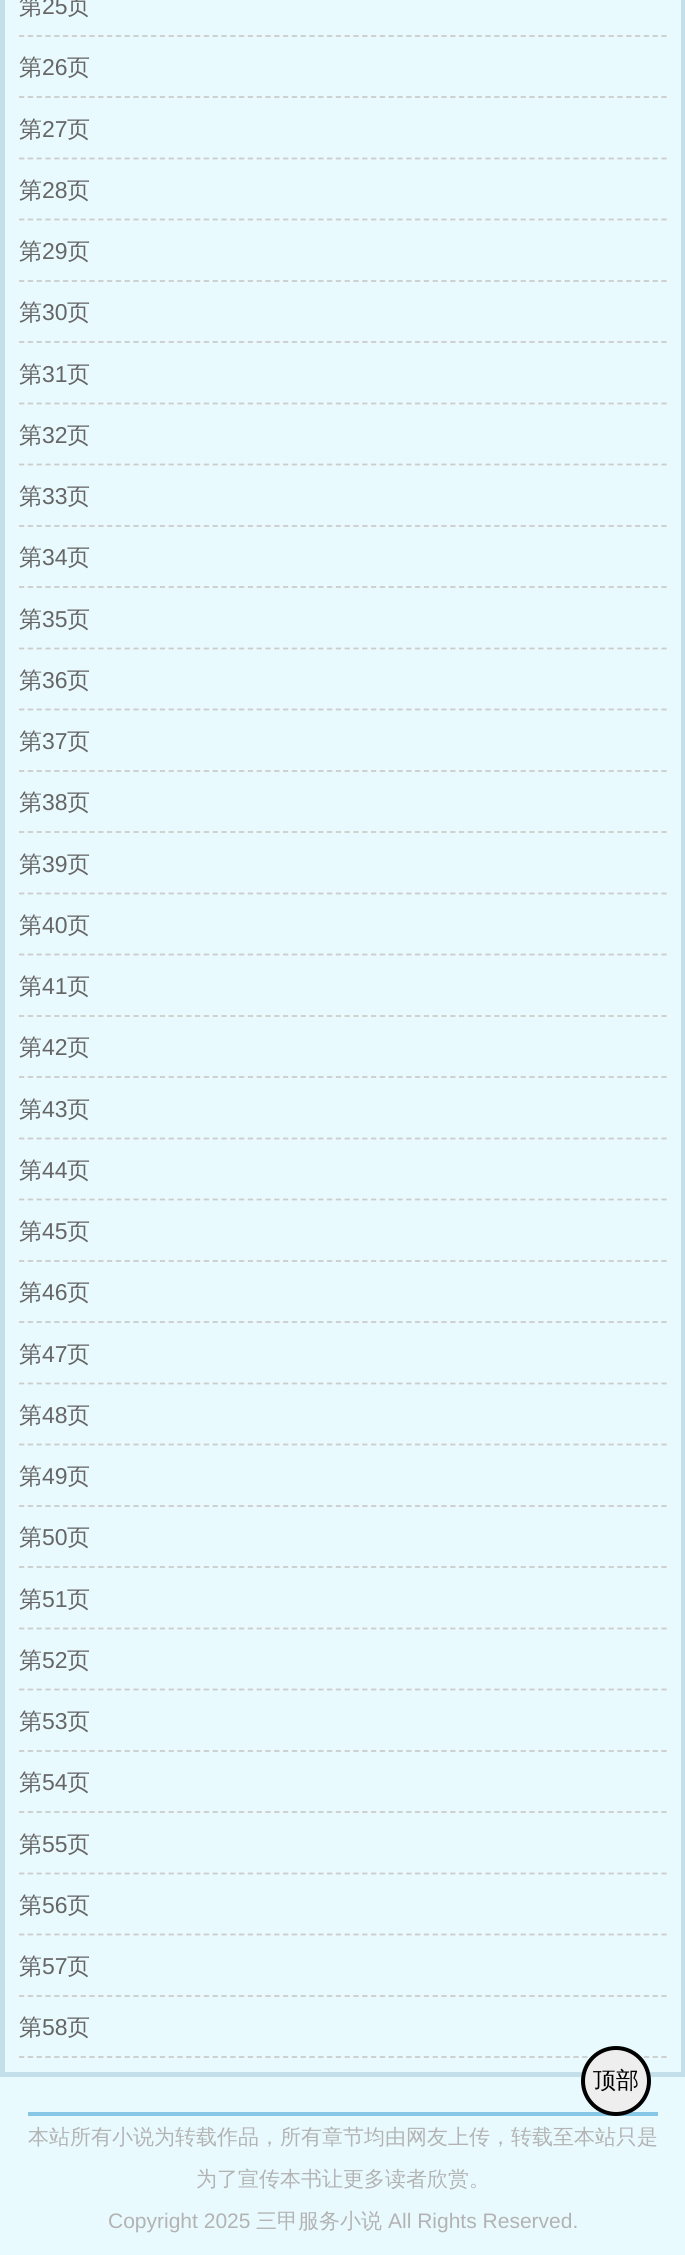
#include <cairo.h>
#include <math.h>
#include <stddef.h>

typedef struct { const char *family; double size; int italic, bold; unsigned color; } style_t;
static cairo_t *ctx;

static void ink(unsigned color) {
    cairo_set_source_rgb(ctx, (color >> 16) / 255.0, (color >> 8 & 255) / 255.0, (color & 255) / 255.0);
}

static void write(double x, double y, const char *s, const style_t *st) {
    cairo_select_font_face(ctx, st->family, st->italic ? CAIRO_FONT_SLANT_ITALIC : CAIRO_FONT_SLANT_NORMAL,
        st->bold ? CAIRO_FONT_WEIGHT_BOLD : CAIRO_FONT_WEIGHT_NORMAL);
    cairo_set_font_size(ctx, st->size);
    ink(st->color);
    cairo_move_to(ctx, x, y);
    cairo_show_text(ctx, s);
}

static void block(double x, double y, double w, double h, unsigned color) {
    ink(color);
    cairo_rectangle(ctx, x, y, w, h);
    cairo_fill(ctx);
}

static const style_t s1 = {"WenQuanYi Zen Hei Medium", 23, 0, 0, 0x666666};
static const style_t s2 = {"Liberation Sans", 23, 0, 0, 0x666666};
static const style_t s3 = {"WenQuanYi Zen Hei Medium", 23, 0, 0, 0x000000};
static const style_t s4 = {"WenQuanYi Zen Hei Medium", 21, 0, 0, 0xb3b3b3};
static const style_t s5 = {"Liberation Sans", 21, 0, 0, 0xb3b3b3};

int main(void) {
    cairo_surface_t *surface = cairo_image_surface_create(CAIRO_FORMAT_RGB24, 685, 2255);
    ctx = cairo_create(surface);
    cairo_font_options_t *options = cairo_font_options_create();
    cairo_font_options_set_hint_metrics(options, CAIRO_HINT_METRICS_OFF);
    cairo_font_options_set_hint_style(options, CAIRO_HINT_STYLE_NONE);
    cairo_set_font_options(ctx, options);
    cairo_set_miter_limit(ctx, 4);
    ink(0xe9faff);
    cairo_paint(ctx);
    cairo_rectangle(ctx, 2.5, -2.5, 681, 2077);
    ink(0xc3dfea);
    cairo_set_line_width(ctx, 5);
    cairo_stroke(ctx);
    cairo_new_path(ctx);
    cairo_move_to(ctx, 19, 36);
    cairo_line_to(ctx, 667, 36);
    ink(0xcccccc);
    cairo_set_line_width(ctx, 1.8);
    cairo_set_dash(ctx, (double[]){5.25, 3.55}, 2, 0);
    cairo_stroke(ctx);
    write(19, 14, "第", &s1);
    write(42, 14, "25", &s2);
    write(67, 14, "页", &s1);
    cairo_new_path(ctx);
    cairo_move_to(ctx, 19, 97);
    cairo_line_to(ctx, 667, 97);
    ink(0xcccccc);
    cairo_stroke(ctx);
    write(19, 75, "第", &s1);
    write(42, 75, "26", &s2);
    write(67, 75, "页", &s1);
    cairo_new_path(ctx);
    cairo_move_to(ctx, 19, 158.5);
    cairo_line_to(ctx, 667, 158.5);
    ink(0xcccccc);
    cairo_stroke(ctx);
    write(19, 137, "第", &s1);
    write(42, 137, "27", &s2);
    write(67, 137, "页", &s1);
    cairo_new_path(ctx);
    cairo_move_to(ctx, 19, 219.5);
    cairo_line_to(ctx, 667, 219.5);
    ink(0xcccccc);
    cairo_stroke(ctx);
    write(19, 198, "第", &s1);
    write(42, 198, "28", &s2);
    write(67, 198, "页", &s1);
    cairo_new_path(ctx);
    cairo_move_to(ctx, 19, 281);
    cairo_line_to(ctx, 667, 281);
    ink(0xcccccc);
    cairo_stroke(ctx);
    write(19, 259, "第", &s1);
    write(42, 259, "29", &s2);
    write(67, 259, "页", &s1);
    cairo_new_path(ctx);
    cairo_move_to(ctx, 19, 342);
    cairo_line_to(ctx, 667, 342);
    ink(0xcccccc);
    cairo_stroke(ctx);
    write(19, 320, "第", &s1);
    write(42, 320, "30", &s2);
    write(67, 320, "页", &s1);
    cairo_new_path(ctx);
    cairo_move_to(ctx, 19, 403.5);
    cairo_line_to(ctx, 667, 403.5);
    ink(0xcccccc);
    cairo_stroke(ctx);
    write(19, 382, "第", &s1);
    write(42, 382, "31", &s2);
    write(67, 382, "页", &s1);
    cairo_new_path(ctx);
    cairo_move_to(ctx, 19, 464.5);
    cairo_line_to(ctx, 667, 464.5);
    ink(0xcccccc);
    cairo_stroke(ctx);
    write(19, 443, "第", &s1);
    write(42, 443, "32", &s2);
    write(67, 443, "页", &s1);
    cairo_new_path(ctx);
    cairo_move_to(ctx, 19, 526);
    cairo_line_to(ctx, 667, 526);
    ink(0xcccccc);
    cairo_stroke(ctx);
    write(19, 504, "第", &s1);
    write(42, 504, "33", &s2);
    write(67, 504, "页", &s1);
    cairo_new_path(ctx);
    cairo_move_to(ctx, 19, 587);
    cairo_line_to(ctx, 667, 587);
    ink(0xcccccc);
    cairo_stroke(ctx);
    write(19, 565, "第", &s1);
    write(42, 565, "34", &s2);
    write(67, 565, "页", &s1);
    cairo_new_path(ctx);
    cairo_move_to(ctx, 19, 648.5);
    cairo_line_to(ctx, 667, 648.5);
    ink(0xcccccc);
    cairo_stroke(ctx);
    write(19, 627, "第", &s1);
    write(42, 627, "35", &s2);
    write(67, 627, "页", &s1);
    cairo_new_path(ctx);
    cairo_move_to(ctx, 19, 709.5);
    cairo_line_to(ctx, 667, 709.5);
    ink(0xcccccc);
    cairo_stroke(ctx);
    write(19, 688, "第", &s1);
    write(42, 688, "36", &s2);
    write(67, 688, "页", &s1);
    cairo_new_path(ctx);
    cairo_move_to(ctx, 19, 771);
    cairo_line_to(ctx, 667, 771);
    ink(0xcccccc);
    cairo_stroke(ctx);
    write(19, 749, "第", &s1);
    write(42, 749, "37", &s2);
    write(67, 749, "页", &s1);
    cairo_new_path(ctx);
    cairo_move_to(ctx, 19, 832);
    cairo_line_to(ctx, 667, 832);
    ink(0xcccccc);
    cairo_stroke(ctx);
    write(19, 810, "第", &s1);
    write(42, 810, "38", &s2);
    write(67, 810, "页", &s1);
    cairo_new_path(ctx);
    cairo_move_to(ctx, 19, 893.5);
    cairo_line_to(ctx, 667, 893.5);
    ink(0xcccccc);
    cairo_stroke(ctx);
    write(19, 872, "第", &s1);
    write(42, 872, "39", &s2);
    write(67, 872, "页", &s1);
    cairo_new_path(ctx);
    cairo_move_to(ctx, 19, 954.5);
    cairo_line_to(ctx, 667, 954.5);
    ink(0xcccccc);
    cairo_stroke(ctx);
    write(19, 933, "第", &s1);
    write(42, 933, "40", &s2);
    write(67, 933, "页", &s1);
    cairo_new_path(ctx);
    cairo_move_to(ctx, 19, 1016);
    cairo_line_to(ctx, 667, 1016);
    ink(0xcccccc);
    cairo_stroke(ctx);
    write(19, 994, "第", &s1);
    write(42, 994, "41", &s2);
    write(67, 994, "页", &s1);
    cairo_new_path(ctx);
    cairo_move_to(ctx, 19, 1077);
    cairo_line_to(ctx, 667, 1077);
    ink(0xcccccc);
    cairo_stroke(ctx);
    write(19, 1055, "第", &s1);
    write(42, 1055, "42", &s2);
    write(67, 1055, "页", &s1);
    cairo_new_path(ctx);
    cairo_move_to(ctx, 19, 1138.5);
    cairo_line_to(ctx, 667, 1138.5);
    ink(0xcccccc);
    cairo_stroke(ctx);
    write(19, 1117, "第", &s1);
    write(42, 1117, "43", &s2);
    write(67, 1117, "页", &s1);
    cairo_new_path(ctx);
    cairo_move_to(ctx, 19, 1199.5);
    cairo_line_to(ctx, 667, 1199.5);
    ink(0xcccccc);
    cairo_stroke(ctx);
    write(19, 1178, "第", &s1);
    write(42, 1178, "44", &s2);
    write(67, 1178, "页", &s1);
    cairo_new_path(ctx);
    cairo_move_to(ctx, 19, 1261);
    cairo_line_to(ctx, 667, 1261);
    ink(0xcccccc);
    cairo_stroke(ctx);
    write(19, 1239, "第", &s1);
    write(42, 1239, "45", &s2);
    write(67, 1239, "页", &s1);
    cairo_new_path(ctx);
    cairo_move_to(ctx, 19, 1322);
    cairo_line_to(ctx, 667, 1322);
    ink(0xcccccc);
    cairo_stroke(ctx);
    write(19, 1300, "第", &s1);
    write(42, 1300, "46", &s2);
    write(67, 1300, "页", &s1);
    cairo_new_path(ctx);
    cairo_move_to(ctx, 19, 1383.5);
    cairo_line_to(ctx, 667, 1383.5);
    ink(0xcccccc);
    cairo_stroke(ctx);
    write(19, 1362, "第", &s1);
    write(42, 1362, "47", &s2);
    write(67, 1362, "页", &s1);
    cairo_new_path(ctx);
    cairo_move_to(ctx, 19, 1444.5);
    cairo_line_to(ctx, 667, 1444.5);
    ink(0xcccccc);
    cairo_stroke(ctx);
    write(19, 1423, "第", &s1);
    write(42, 1423, "48", &s2);
    write(67, 1423, "页", &s1);
    cairo_new_path(ctx);
    cairo_move_to(ctx, 19, 1506);
    cairo_line_to(ctx, 667, 1506);
    ink(0xcccccc);
    cairo_stroke(ctx);
    write(19, 1484, "第", &s1);
    write(42, 1484, "49", &s2);
    write(67, 1484, "页", &s1);
    cairo_new_path(ctx);
    cairo_move_to(ctx, 19, 1567);
    cairo_line_to(ctx, 667, 1567);
    ink(0xcccccc);
    cairo_stroke(ctx);
    write(19, 1545, "第", &s1);
    write(42, 1545, "50", &s2);
    write(67, 1545, "页", &s1);
    cairo_new_path(ctx);
    cairo_move_to(ctx, 19, 1628.5);
    cairo_line_to(ctx, 667, 1628.5);
    ink(0xcccccc);
    cairo_stroke(ctx);
    write(19, 1607, "第", &s1);
    write(42, 1607, "51", &s2);
    write(67, 1607, "页", &s1);
    cairo_new_path(ctx);
    cairo_move_to(ctx, 19, 1689.5);
    cairo_line_to(ctx, 667, 1689.5);
    ink(0xcccccc);
    cairo_stroke(ctx);
    write(19, 1668, "第", &s1);
    write(42, 1668, "52", &s2);
    write(67, 1668, "页", &s1);
    cairo_new_path(ctx);
    cairo_move_to(ctx, 19, 1751);
    cairo_line_to(ctx, 667, 1751);
    ink(0xcccccc);
    cairo_stroke(ctx);
    write(19, 1729, "第", &s1);
    write(42, 1729, "53", &s2);
    write(67, 1729, "页", &s1);
    cairo_new_path(ctx);
    cairo_move_to(ctx, 19, 1812);
    cairo_line_to(ctx, 667, 1812);
    ink(0xcccccc);
    cairo_stroke(ctx);
    write(19, 1790, "第", &s1);
    write(42, 1790, "54", &s2);
    write(67, 1790, "页", &s1);
    cairo_new_path(ctx);
    cairo_move_to(ctx, 19, 1873.5);
    cairo_line_to(ctx, 667, 1873.5);
    ink(0xcccccc);
    cairo_stroke(ctx);
    write(19, 1852, "第", &s1);
    write(42, 1852, "55", &s2);
    write(67, 1852, "页", &s1);
    cairo_new_path(ctx);
    cairo_move_to(ctx, 19, 1934.5);
    cairo_line_to(ctx, 667, 1934.5);
    ink(0xcccccc);
    cairo_stroke(ctx);
    write(19, 1913, "第", &s1);
    write(42, 1913, "56", &s2);
    write(67, 1913, "页", &s1);
    cairo_new_path(ctx);
    cairo_move_to(ctx, 19, 1996);
    cairo_line_to(ctx, 667, 1996);
    ink(0xcccccc);
    cairo_stroke(ctx);
    write(19, 1974, "第", &s1);
    write(42, 1974, "57", &s2);
    write(67, 1974, "页", &s1);
    cairo_new_path(ctx);
    cairo_move_to(ctx, 19, 2057);
    cairo_line_to(ctx, 667, 2057);
    ink(0xcccccc);
    cairo_stroke(ctx);
    write(19, 2035, "第", &s1);
    write(42, 2035, "58", &s2);
    write(67, 2035, "页", &s1);
    block(28, 2112, 630, 4, 0x88c6e5);
    ink(0xeeeeee);
    cairo_new_path(ctx);
    cairo_arc(ctx, 616, 2081, 33, 0, 2 * M_PI);
    cairo_fill_preserve(ctx);
    ink(0x000000);
    cairo_set_line_width(ctx, 4);
    cairo_set_dash(ctx, NULL, 0, 0);
    cairo_stroke(ctx);
    write(593, 2088, "顶部", &s3);
    write(28, 2144, "本站所有小说为转载作品，所有章节均由网友上传，转载至本站只是", &s4);
    write(196, 2186, "为了宣传本书让更多读者欣赏。", &s4);
    write(108, 2228, "Copyright 2025", &s5);
    write(256, 2228, "三甲服务小说", &s4);
    write(388, 2228, "All Rights Reserved.", &s5);
    cairo_surface_write_to_png(surface, "screenshot.png");
    cairo_font_options_destroy(options);
    cairo_destroy(ctx);
    cairo_surface_destroy(surface);
    return 0;
}
